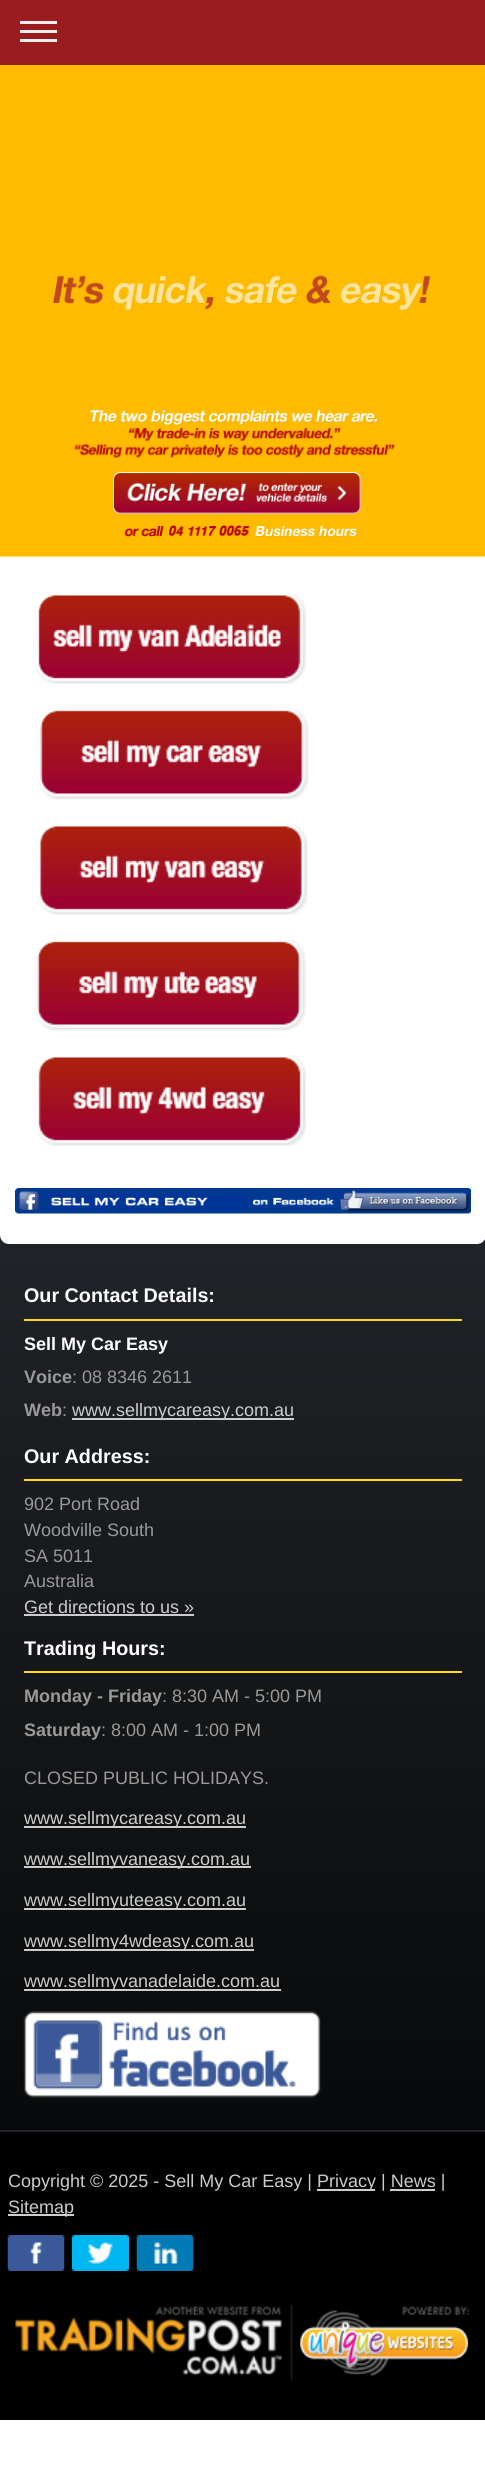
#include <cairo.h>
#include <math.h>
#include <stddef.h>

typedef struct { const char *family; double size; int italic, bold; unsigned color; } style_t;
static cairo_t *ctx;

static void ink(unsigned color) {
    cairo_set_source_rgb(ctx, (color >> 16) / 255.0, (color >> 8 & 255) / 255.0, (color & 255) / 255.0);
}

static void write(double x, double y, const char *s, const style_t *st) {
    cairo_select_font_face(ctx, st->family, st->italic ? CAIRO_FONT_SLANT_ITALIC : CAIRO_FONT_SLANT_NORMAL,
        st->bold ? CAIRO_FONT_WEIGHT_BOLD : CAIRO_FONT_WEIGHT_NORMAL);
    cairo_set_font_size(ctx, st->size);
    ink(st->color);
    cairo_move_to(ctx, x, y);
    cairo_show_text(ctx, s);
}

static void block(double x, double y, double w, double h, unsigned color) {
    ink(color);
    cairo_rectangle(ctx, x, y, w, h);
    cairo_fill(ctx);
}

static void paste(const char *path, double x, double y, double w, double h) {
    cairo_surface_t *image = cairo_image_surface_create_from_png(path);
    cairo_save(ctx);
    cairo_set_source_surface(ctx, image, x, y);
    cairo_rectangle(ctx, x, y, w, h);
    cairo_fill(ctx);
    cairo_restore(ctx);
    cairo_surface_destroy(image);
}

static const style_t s1 = {"Liberation Sans", 19.75, 0, 1, 0xffffff};
static const style_t s2 = {"Liberation Sans", 18, 0, 1, 0xffffff};
static const style_t s3 = {"Liberation Sans", 18, 0, 1, 0x999999};
static const style_t s4 = {"Liberation Sans", 18, 0, 0, 0x999999};
static const style_t s5 = {"Liberation Sans", 18, 0, 0, 0xcccccc};

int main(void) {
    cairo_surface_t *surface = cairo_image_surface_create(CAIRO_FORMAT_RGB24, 485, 2466);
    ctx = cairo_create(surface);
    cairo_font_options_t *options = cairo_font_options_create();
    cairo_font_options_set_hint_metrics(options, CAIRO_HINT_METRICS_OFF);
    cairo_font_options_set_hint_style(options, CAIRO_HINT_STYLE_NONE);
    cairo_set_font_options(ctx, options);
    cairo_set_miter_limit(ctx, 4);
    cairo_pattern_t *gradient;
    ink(0xffffff);
    cairo_paint(ctx);
    block(0, 0, 485, 65, 0x9b1c1f);
    block(20, 30, 37, 3, 0xeeeeee);
    block(20, 21, 37, 3, 0xeeeeee);
    block(20, 39, 37, 3, 0xeeeeee);
    gradient = cairo_pattern_create_linear(243, 1215, 243, 2130);
    cairo_pattern_add_color_stop_rgba(gradient, 0, 0.129, 0.141, 0.157, 1);
    cairo_pattern_add_color_stop_rgba(gradient, 1, 0.031, 0.035, 0.039, 1);
    cairo_set_source(ctx, gradient);
    cairo_pattern_destroy(gradient);
    cairo_rectangle(ctx, 0, 1235, 485, 895);
    cairo_fill(ctx);
    ink(0xffffff);
    cairo_new_path(ctx);
    cairo_move_to(ctx, 0, 215);
    cairo_line_to(ctx, 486, 215);
    cairo_line_to(ctx, 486, 1235);
    cairo_curve_to(ctx, 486, 1240, 482, 1244, 477, 1244);
    cairo_line_to(ctx, 9, 1244);
    cairo_curve_to(ctx, 4, 1244, 0, 1240, 0, 1235);
    cairo_close_path(ctx);
    cairo_fill(ctx);
    block(0, 65, 485, 330, 0xffbb00);
    paste("pic1.png", 0, 215, 485, 96);
    paste("pic2.png", 0, 395, 485, 162);
    paste("pic3.png", 36, 593, 270, 91);
    paste("pic4.png", 38, 709, 271, 91);
    paste("pic5.png", 38, 824, 270, 91);
    paste("pic6.png", 35, 940, 271, 91);
    paste("pic7.png", 36, 1055, 270, 91);
    paste("pic8.png", 15, 1188, 456, 26);
    block(24, 1319, 438, 2, 0xffdc00);
    write(24, 1302, "Our Contact Details:", &s1);
    write(24, 1350, "Sell My Car Easy", &s2);
    write(24, 1383, "Voice", &s3);
    write(72, 1383, ": 08 8346 2611", &s4);
    write(24, 1416, "Web", &s3);
    write(62, 1416, ":", &s4);
    block(72, 1418, 222, 2, 0xcccccc);
    write(72, 1416, "www.sellmycareasy.com.au", &s5);
    block(24, 1479, 438, 2, 0xffdc00);
    write(24, 1463, "Our Address:", &s1);
    write(24, 1510, "902 Port Road", &s4);
    write(24, 1536, "Woodville South", &s4);
    write(24, 1562, "SA 5011", &s4);
    write(24, 1587, "Australia", &s4);
    write(24, 1613, "Get directions to us »", &s5);
    block(24, 1614, 170, 2, 0xcccccc);
    block(24, 1671, 438, 2, 0xffdc00);
    write(24, 1655, "Trading Hours:", &s1);
    write(24, 1702, "Monday - Friday", &s3);
    write(162, 1702, ": 8:30 AM - 5:00 PM", &s4);
    write(24, 1736, "Saturday", &s3);
    write(101, 1736, ": 8:00 AM - 1:00 PM", &s4);
    write(24, 1784, "CLOSED PUBLIC HOLIDAYS.", &s4);
    block(24, 1826, 222, 2, 0xcccccc);
    write(24, 1824, "www.sellmycareasy.com.au", &s5);
    block(24, 1866, 227, 2, 0xcccccc);
    write(24, 1865, "www.sellmyvaneasy.com.au", &s5);
    block(24, 1908, 222, 2, 0xcccccc);
    write(24, 1906, "www.sellmyuteeasy.com.au", &s5);
    block(24, 1949, 230, 2, 0xcccccc);
    write(24, 1947, "www.sellmy4wdeasy.com.au", &s5);
    block(24, 1989, 257, 2, 0xcccccc);
    write(24, 1987, "www.sellmyvanadelaide.com.au", &s5);
    paste("pic9.png", 23, 2011, 298, 87);
    block(0, 2132, 485, 288, 0x000000);
    block(0, 2130, 485, 2, 0x212428);
    write(8, 2187, "Copyright © 2025 - Sell My Car Easy |", &s5);
    block(317, 2189, 58, 2, 0xcccccc);
    write(317, 2187, "Privacy | News |", &s5);
    block(390, 2189, 45, 2, 0xcccccc);
    block(8, 2214, 66, 2, 0xcccccc);
    write(8, 2213, "Sitemap", &s5);
    paste("pic10.png", 7, 2235, 58, 36);
    paste("pic11.png", 72, 2235, 57, 36);
    paste("pic12.png", 136, 2235, 58, 36);
    paste("pic13.png", 15, 2305, 455, 75);
    cairo_surface_write_to_png(surface, "screenshot.png");
    cairo_font_options_destroy(options);
    cairo_destroy(ctx);
    cairo_surface_destroy(surface);
    return 0;
}
